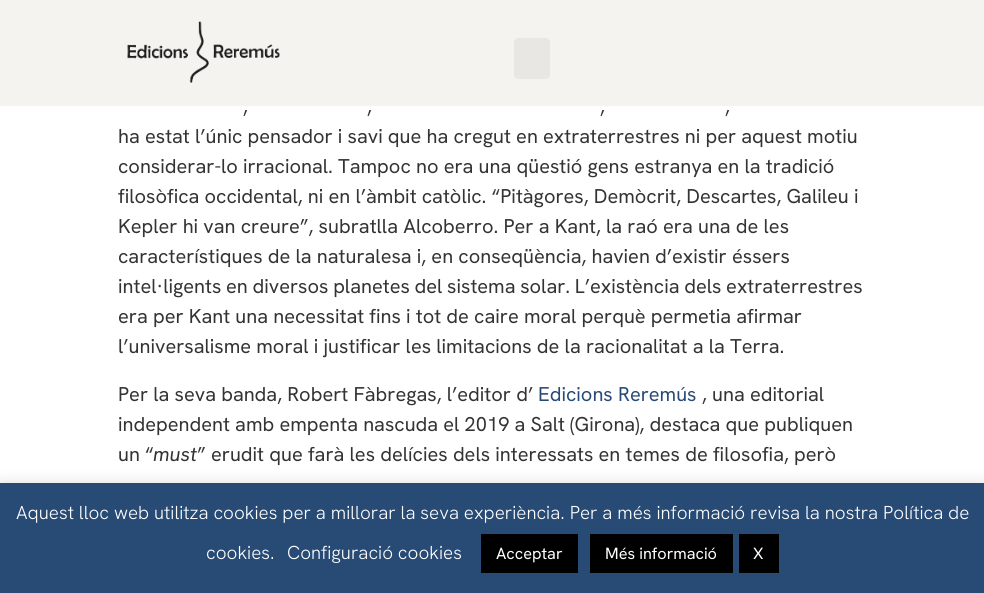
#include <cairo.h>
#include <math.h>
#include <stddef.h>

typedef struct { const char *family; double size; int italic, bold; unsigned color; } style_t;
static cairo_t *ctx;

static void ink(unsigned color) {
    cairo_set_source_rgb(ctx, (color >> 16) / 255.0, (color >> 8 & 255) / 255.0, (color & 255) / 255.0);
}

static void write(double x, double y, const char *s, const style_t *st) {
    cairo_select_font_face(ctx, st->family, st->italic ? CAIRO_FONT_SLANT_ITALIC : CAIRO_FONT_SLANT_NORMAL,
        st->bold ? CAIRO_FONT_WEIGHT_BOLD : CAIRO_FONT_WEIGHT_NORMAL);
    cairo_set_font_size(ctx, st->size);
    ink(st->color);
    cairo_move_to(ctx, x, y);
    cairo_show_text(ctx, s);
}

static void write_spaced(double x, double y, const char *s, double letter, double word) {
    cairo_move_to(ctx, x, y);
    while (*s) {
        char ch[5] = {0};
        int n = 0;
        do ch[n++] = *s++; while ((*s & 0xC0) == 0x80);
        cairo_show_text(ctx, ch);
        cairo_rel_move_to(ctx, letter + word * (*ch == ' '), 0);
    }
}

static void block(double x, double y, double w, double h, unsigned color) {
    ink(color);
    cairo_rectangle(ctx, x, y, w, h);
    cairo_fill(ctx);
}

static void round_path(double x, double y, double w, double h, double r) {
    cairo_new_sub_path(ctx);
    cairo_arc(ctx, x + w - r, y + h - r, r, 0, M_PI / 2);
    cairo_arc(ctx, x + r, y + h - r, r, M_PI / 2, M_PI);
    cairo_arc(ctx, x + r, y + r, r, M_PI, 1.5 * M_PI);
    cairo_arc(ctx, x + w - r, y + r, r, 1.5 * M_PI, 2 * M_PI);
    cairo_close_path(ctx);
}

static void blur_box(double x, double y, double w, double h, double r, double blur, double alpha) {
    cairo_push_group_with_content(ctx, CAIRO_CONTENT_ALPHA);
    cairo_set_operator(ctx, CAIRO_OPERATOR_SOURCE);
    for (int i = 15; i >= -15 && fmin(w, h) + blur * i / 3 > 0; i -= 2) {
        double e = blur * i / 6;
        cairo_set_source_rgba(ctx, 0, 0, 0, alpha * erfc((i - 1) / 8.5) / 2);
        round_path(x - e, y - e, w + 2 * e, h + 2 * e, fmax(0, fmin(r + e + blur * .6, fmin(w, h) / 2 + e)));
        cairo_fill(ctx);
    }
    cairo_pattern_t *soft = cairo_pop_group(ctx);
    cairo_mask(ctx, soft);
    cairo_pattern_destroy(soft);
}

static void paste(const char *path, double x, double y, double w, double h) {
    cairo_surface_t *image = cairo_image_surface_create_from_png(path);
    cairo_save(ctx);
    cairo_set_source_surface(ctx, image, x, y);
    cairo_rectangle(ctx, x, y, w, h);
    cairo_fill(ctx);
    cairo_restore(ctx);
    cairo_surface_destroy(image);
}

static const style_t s1 = {"Hanken Grotesk", 20, 0, 0, 0x333333};
static const style_t s2 = {"Hanken Grotesk", 20, 0, 0, 0x284b76};
static const style_t s3 = {"Hanken Grotesk", 20, 1, 0, 0x333333};
static const style_t s4 = {"Hanken Grotesk Light", 18.75, 0, 0, 0xffffff};
static const style_t s5 = {"Hanken Grotesk", 16.25, 0, 0, 0xffffff};

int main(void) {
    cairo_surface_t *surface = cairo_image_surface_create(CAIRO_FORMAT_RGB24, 984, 593);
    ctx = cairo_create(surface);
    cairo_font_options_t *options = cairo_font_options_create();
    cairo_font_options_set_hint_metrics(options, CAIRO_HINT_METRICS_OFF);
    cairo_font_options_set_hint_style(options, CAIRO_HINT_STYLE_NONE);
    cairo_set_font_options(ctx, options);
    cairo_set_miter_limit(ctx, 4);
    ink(0xffffff);
    cairo_paint(ctx);
    block(0, 0, 984, 106, 0xf5f3f0);
    paste("pic1.png", 127, 21, 153, 62);
    ink(0xe9e7e4);
    round_path(514, 38, 36, 41, 4);
    cairo_fill(ctx);
    write(243, 113, ",", &s1);
    write(367, 113, ",", &s1);
    write(600, 113, ",", &s1);
    write(725, 113, ",", &s1);
    write(118, 143, "ha estat l’únic pensador i savi que ha cregut en extraterrestres ni per aquest motiu", &s1);
    write(118, 173, "considerar-lo irracional. Tampoc no era una qüestió gens estranya en la tradició", &s1);
    write(118, 203, "filosòfica occidental, ni en l’àmbit catòlic. “Pitàgores, Demòcrit, Descartes, Galileu i", &s1);
    write(118, 233, "Kepler hi van creure”, subratlla Alcoberro. Per a Kant, la raó era una de les", &s1);
    write(118, 263, "característiques de la naturalesa i, en conseqüència, havien d’existir éssers", &s1);
    write_spaced(118, 293, "intel·ligents en diversos planetes del sistema solar. L’existència dels extraterrestres", 0, -0.5);
    write(118, 323, "era per Kant una necessitat fins i tot de caire moral perquè permetia afirmar", &s1);
    write(118, 353, "l’universalisme moral i justificar les limitacions de la racionalitat a la Terra.", &s1);
    write(118, 401, "Per la seva banda, Robert Fàbregas, l’editor d’", &s1);
    write(538, 401, "Edicions Reremús", &s2);
    write(702, 401, ", una editorial", &s1);
    write(118, 431, "independent amb empenta nascuda el 2019 a Salt (Girona), destaca que publiquen", &s1);
    write(118, 461, "un “", &s1);
    write(153, 461, "must", &s3);
    write(197, 461, "” erudit que farà les delícies dels interessats en temes de filosofia, però", &s1);
    ink(0xacabab);
    blur_box(0, 481, 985, 112, 0, 6, 0.3);
    block(0, 483, 984, 110, 0x284b76);
    write(16, 519, "Aquest lloc web utilitza cookies per a millorar la seva experiència. Per a més informació revisa la nostra Política de", &s4);
    write(206, 559, "cookies.", &s4);
    write(287, 559, "Configuració cookies", &s4);
    block(481, 534, 97, 39, 0x000000);
    write(496, 559, "Acceptar", &s5);
    block(590, 534, 143, 39, 0x000000);
    write(605, 559, "Més informació", &s5);
    block(739, 534, 40, 39, 0x000000);
    write(753, 559, "X", &s5);
    cairo_surface_write_to_png(surface, "screenshot.png");
    cairo_font_options_destroy(options);
    cairo_destroy(ctx);
    cairo_surface_destroy(surface);
    return 0;
}
